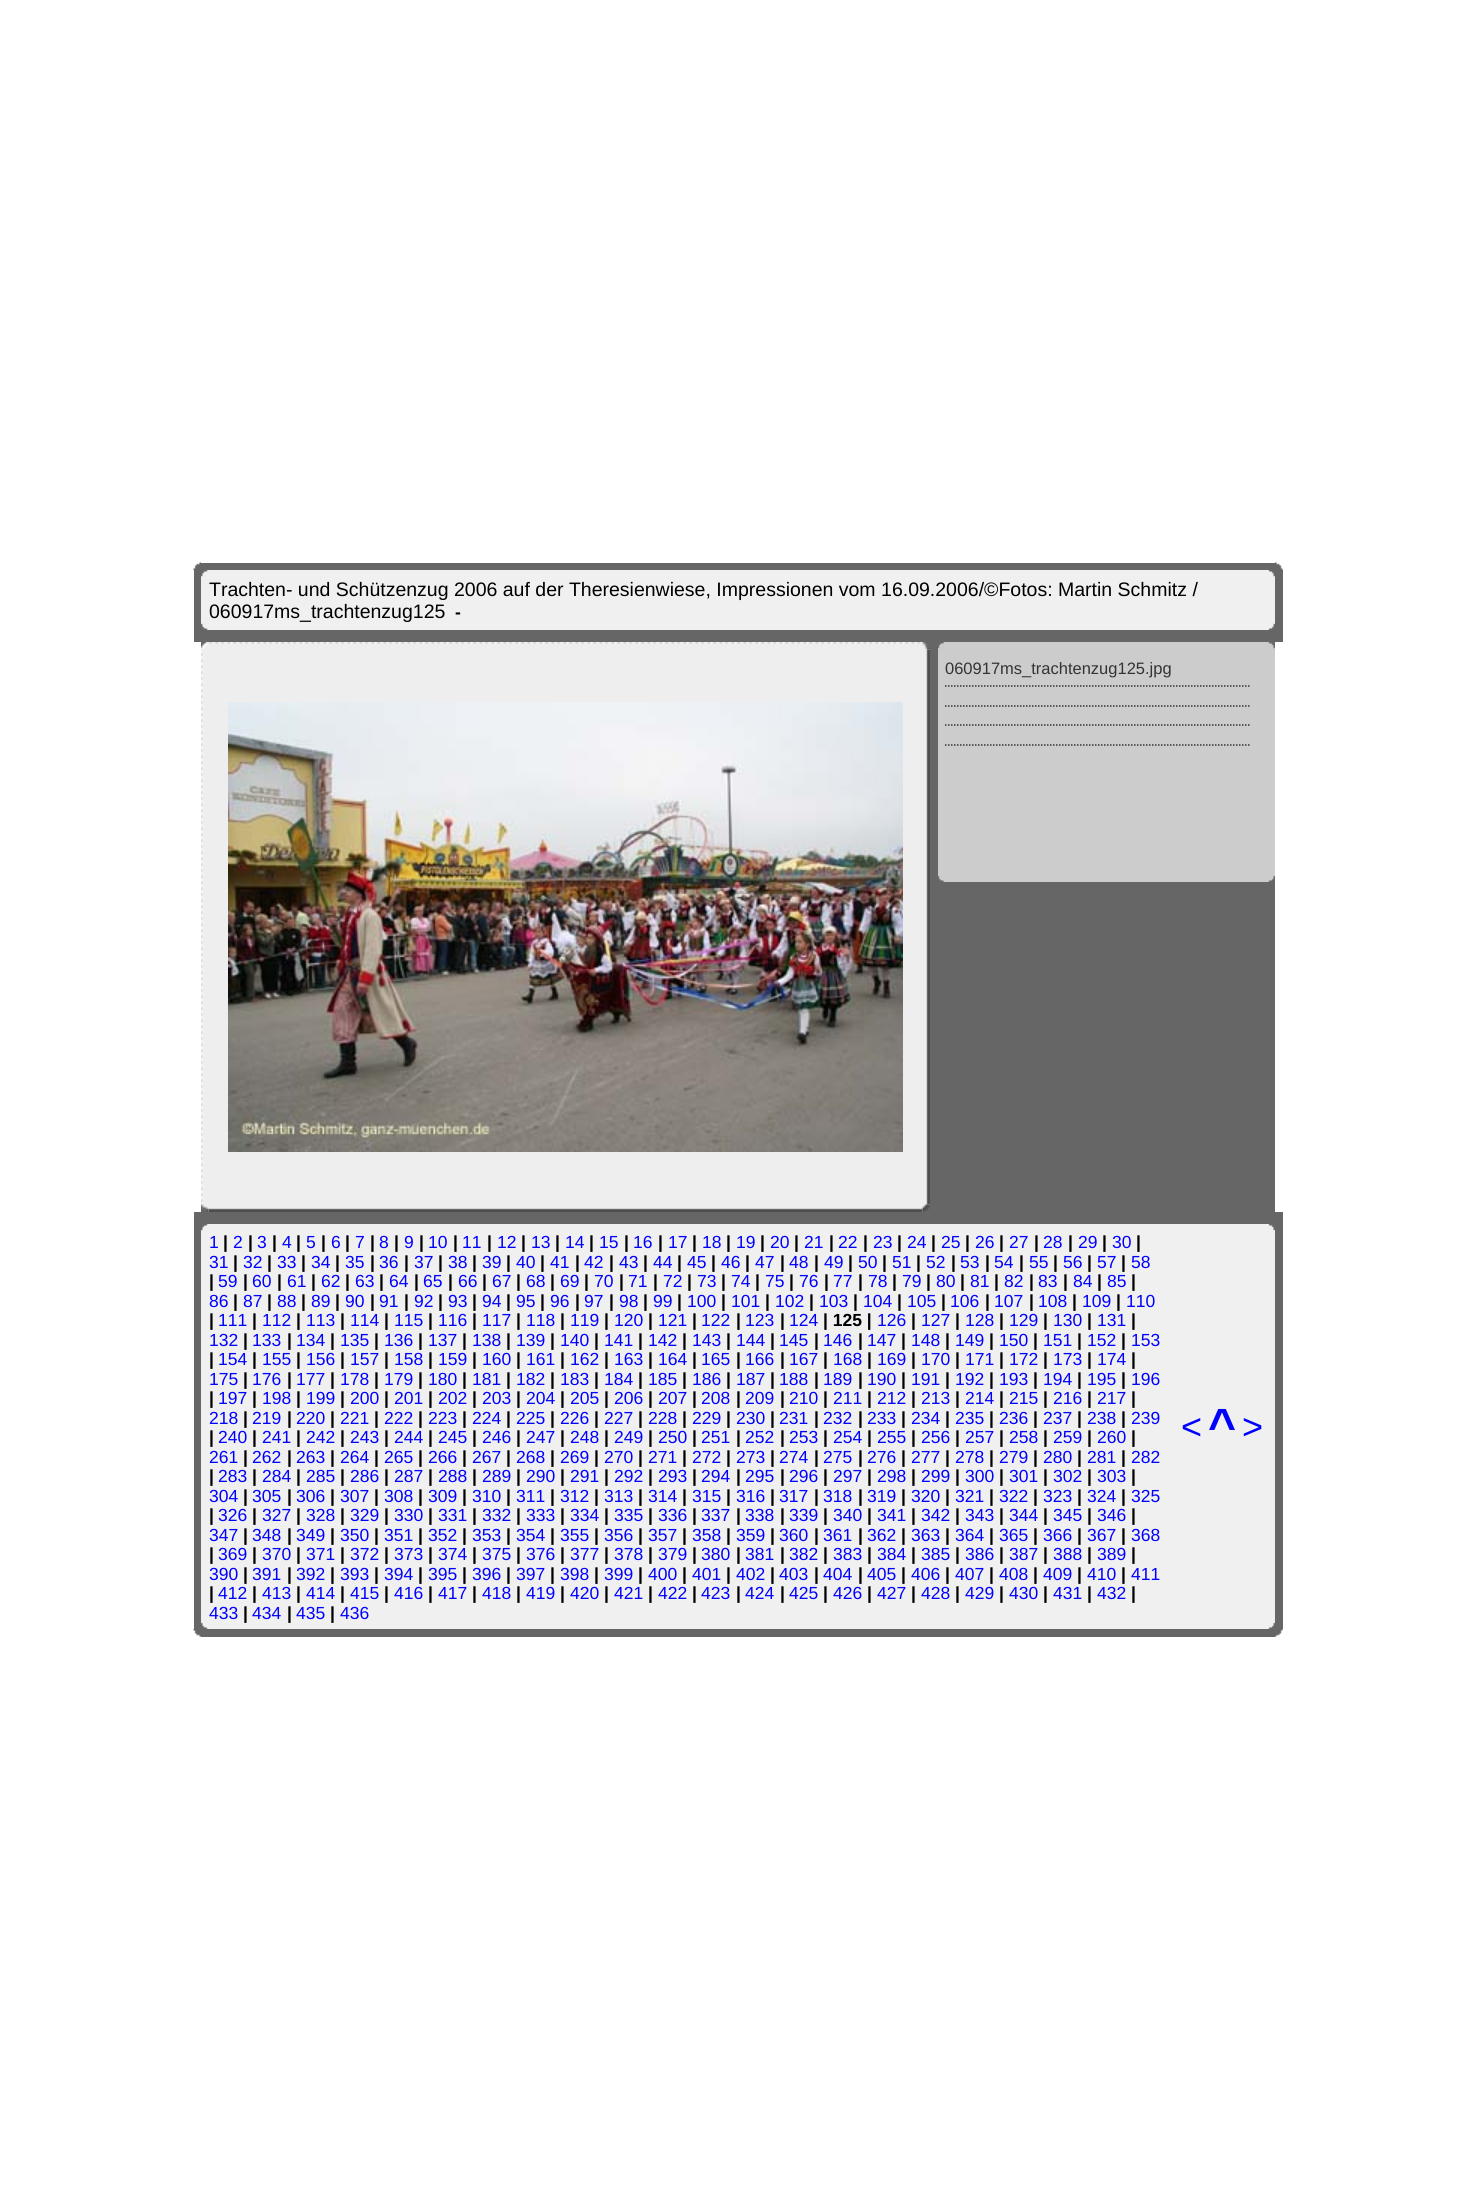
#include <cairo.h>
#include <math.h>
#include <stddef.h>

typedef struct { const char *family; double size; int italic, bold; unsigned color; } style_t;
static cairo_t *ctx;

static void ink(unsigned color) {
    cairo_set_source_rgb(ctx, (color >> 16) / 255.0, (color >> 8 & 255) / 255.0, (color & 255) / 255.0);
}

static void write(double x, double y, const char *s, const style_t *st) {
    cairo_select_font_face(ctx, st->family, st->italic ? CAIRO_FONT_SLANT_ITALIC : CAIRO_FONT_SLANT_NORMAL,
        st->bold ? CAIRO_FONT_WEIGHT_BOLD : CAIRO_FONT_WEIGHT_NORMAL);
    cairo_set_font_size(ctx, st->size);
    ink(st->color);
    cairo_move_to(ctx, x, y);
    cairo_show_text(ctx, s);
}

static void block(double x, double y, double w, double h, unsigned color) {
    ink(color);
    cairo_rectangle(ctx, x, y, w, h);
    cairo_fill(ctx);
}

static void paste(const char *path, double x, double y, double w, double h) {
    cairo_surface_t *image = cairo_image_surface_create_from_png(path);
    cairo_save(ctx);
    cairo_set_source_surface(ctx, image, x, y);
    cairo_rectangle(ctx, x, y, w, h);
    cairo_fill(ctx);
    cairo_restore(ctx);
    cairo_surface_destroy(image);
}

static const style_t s1 = {"Liberation Sans", 19.5, 0, 0, 0x000000};
static const style_t s2 = {"Liberation Sans", 17.5, 0, 1, 0x000000};
static const style_t s3 = {"Liberation Sans", 16.5, 0, 0, 0x333333};
static const style_t s4 = {"Liberation Sans", 17.5, 0, 0, 0x0000ff};
static const style_t s5 = {"Liberation Sans", 36, 0, 0, 0x0000ff};
static const style_t s6 = {"Liberation Sans", 48, 0, 1, 0x0000ff};

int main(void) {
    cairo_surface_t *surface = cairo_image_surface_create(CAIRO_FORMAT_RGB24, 1475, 2199);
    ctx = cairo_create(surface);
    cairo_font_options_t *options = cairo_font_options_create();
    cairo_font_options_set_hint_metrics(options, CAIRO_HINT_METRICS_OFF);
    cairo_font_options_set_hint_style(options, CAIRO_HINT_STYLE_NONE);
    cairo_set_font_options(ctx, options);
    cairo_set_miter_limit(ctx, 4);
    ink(0xffffff);
    cairo_paint(ctx);
    paste("pic1.png", 193, 562, 8, 8);
    block(201, 563, 1074, 7, 0x666666);
    paste("pic2.png", 1275, 562, 8, 8);
    block(194, 570, 1089, 72, 0x666666);
    block(201, 570, 1074, 8, 0xf0f0f0);
    paste("pic3.png", 201, 570, 7, 7);
    paste("pic4.png", 1268, 570, 7, 7);
    block(201, 578, 1074, 45, 0xf0f0f0);
    write(209, 596, "Trachten- und Schützenzug 2006 auf der Theresienwiese, Impressionen vom 16.09.2006/©Fotos: Martin Schmitz /", &s1);
    write(209, 618, "060917ms_trachtenzug125", &s1);
    write(455, 618, "-", &s2);
    block(201, 623, 1074, 7, 0xf0f0f0);
    paste("pic5.png", 201, 623, 7, 7);
    paste("pic6.png", 1268, 623, 7, 7);
    block(201, 642, 729, 8, 0xeeeeee);
    block(201, 650, 729, 555, 0xeeeeee);
    paste("pic10.png", 201, 649, 2, 555);
    paste("pic7.png", 201, 642, 7, 8);
    paste("pic8.png", 209, 642, 713, 2);
    paste("pic12.png", 926, 649, 4, 556);
    paste("pic9.png", 922, 642, 8, 8);
    paste("pic11.png", 228, 702, 675, 450);
    block(201, 1205, 722, 7, 0xeeeeee);
    paste("pic15.png", 208, 1208, 715, 4);
    paste("pic13.png", 201, 1204, 8, 8);
    paste("pic14.png", 922, 1204, 8, 8);
    block(930, 642, 8, 570, 0x666666);
    block(938, 882, 337, 330, 0x666666);
    block(938, 642, 337, 8, 0xcccccc);
    paste("pic16.png", 938, 642, 6, 7);
    paste("pic17.png", 1268, 642, 7, 7);
    block(938, 650, 337, 225, 0xcccccc);
    cairo_new_path(ctx);
    cairo_move_to(ctx, 945, 686);
    cairo_line_to(ctx, 1251, 686);
    ink(0x333333);
    cairo_set_line_width(ctx, 1.5);
    cairo_set_dash(ctx, (double[]){1.5, 1.5}, 2, 0);
    cairo_stroke(ctx);
    write(945, 674, "060917ms_trachtenzug125.jpg", &s3);
    cairo_new_path(ctx);
    cairo_move_to(ctx, 945, 706);
    cairo_line_to(ctx, 1251, 706);
    cairo_stroke(ctx);
    cairo_new_path(ctx);
    cairo_move_to(ctx, 945, 725);
    cairo_line_to(ctx, 1251, 725);
    cairo_stroke(ctx);
    cairo_new_path(ctx);
    cairo_move_to(ctx, 945, 745);
    cairo_line_to(ctx, 1251, 745);
    cairo_stroke(ctx);
    block(938, 875, 337, 7, 0xcccccc);
    paste("pic18.png", 938, 875, 6, 7);
    paste("pic19.png", 1268, 875, 7, 7);
    block(194, 1212, 1089, 417, 0x666666);
    block(201, 1224, 1074, 8, 0xf0f0f0);
    paste("pic3.png", 201, 1224, 7, 7);
    paste("pic4.png", 1268, 1224, 7, 7);
    block(201, 1232, 1074, 390, 0xf0f0f0);
    write(209, 1248, "1", &s4);
    write(223, 1248, "|", &s2);
    write(233, 1248, "2", &s4);
    write(248, 1248, "|", &s2);
    write(257, 1248, "3", &s4);
    write(272, 1248, "|", &s2);
    write(282, 1248, "4", &s4);
    write(296, 1248, "|", &s2);
    write(306, 1248, "5", &s4);
    write(321, 1248, "|", &s2);
    write(331, 1248, "6", &s4);
    write(345, 1248, "|", &s2);
    write(355, 1248, "7", &s4);
    write(370, 1248, "|", &s2);
    write(379, 1248, "8", &s4);
    write(394, 1248, "|", &s2);
    write(404, 1248, "9", &s4);
    write(419, 1248, "|", &s2);
    write(428, 1248, "10", &s4);
    write(453, 1248, "|", &s2);
    write(462, 1248, "11", &s4);
    write(487, 1248, "|", &s2);
    write(497, 1248, "12", &s4);
    write(521, 1248, "|", &s2);
    write(531, 1248, "13", &s4);
    write(555, 1248, "|", &s2);
    write(565, 1248, "14", &s4);
    write(589, 1248, "|", &s2);
    write(599, 1248, "15", &s4);
    write(624, 1248, "|", &s2);
    write(633, 1248, "16", &s4);
    write(658, 1248, "|", &s2);
    write(668, 1248, "17", &s4);
    write(692, 1248, "|", &s2);
    write(702, 1248, "18", &s4);
    write(726, 1248, "|", &s2);
    write(736, 1248, "19", &s4);
    write(760, 1248, "|", &s2);
    write(770, 1248, "20", &s4);
    write(794, 1248, "|", &s2);
    write(804, 1248, "21", &s4);
    write(829, 1248, "|", &s2);
    write(838, 1248, "22", &s4);
    write(863, 1248, "|", &s2);
    write(873, 1248, "23", &s4);
    write(897, 1248, "|", &s2);
    write(907, 1248, "24", &s4);
    write(931, 1248, "|", &s2);
    write(941, 1248, "25", &s4);
    write(965, 1248, "|", &s2);
    write(975, 1248, "26", &s4);
    write(999, 1248, "|", &s2);
    write(1009, 1248, "27", &s4);
    write(1034, 1248, "|", &s2);
    write(1043, 1248, "28", &s4);
    write(1068, 1248, "|", &s2);
    write(1078, 1248, "29", &s4);
    write(1102, 1248, "|", &s2);
    write(1112, 1248, "30", &s4);
    write(1136, 1248, "|", &s2);
    write(209, 1268, "31", &s4);
    write(233, 1268, "|", &s2);
    write(243, 1268, "32", &s4);
    write(267, 1268, "|", &s2);
    write(277, 1268, "33", &s4);
    write(301, 1268, "|", &s2);
    write(311, 1268, "34", &s4);
    write(335, 1268, "|", &s2);
    write(345, 1268, "35", &s4);
    write(370, 1268, "|", &s2);
    write(379, 1268, "36", &s4);
    write(404, 1268, "|", &s2);
    write(414, 1268, "37", &s4);
    write(438, 1268, "|", &s2);
    write(448, 1268, "38", &s4);
    write(472, 1268, "|", &s2);
    write(482, 1268, "39", &s4);
    write(506, 1268, "|", &s2);
    write(516, 1268, "40", &s4);
    write(540, 1268, "|", &s2);
    write(550, 1268, "41", &s4);
    write(575, 1268, "|", &s2);
    write(584, 1268, "42", &s4);
    write(609, 1268, "|", &s2);
    write(619, 1268, "43", &s4);
    write(643, 1268, "|", &s2);
    write(653, 1268, "44", &s4);
    write(677, 1268, "|", &s2);
    write(687, 1268, "45", &s4);
    write(711, 1268, "|", &s2);
    write(721, 1268, "46", &s4);
    write(745, 1268, "|", &s2);
    write(755, 1268, "47", &s4);
    write(780, 1268, "|", &s2);
    write(789, 1268, "48", &s4);
    write(814, 1268, "|", &s2);
    write(824, 1268, "49", &s4);
    write(848, 1268, "|", &s2);
    write(858, 1268, "50", &s4);
    write(882, 1268, "|", &s2);
    write(892, 1268, "51", &s4);
    write(916, 1268, "|", &s2);
    write(926, 1268, "52", &s4);
    write(951, 1268, "|", &s2);
    write(960, 1268, "53", &s4);
    write(985, 1268, "|", &s2);
    write(994, 1268, "54", &s4);
    write(1019, 1268, "|", &s2);
    write(1029, 1268, "55", &s4);
    write(1053, 1268, "|", &s2);
    write(1063, 1268, "56", &s4);
    write(1087, 1268, "|", &s2);
    write(1097, 1268, "57", &s4);
    write(1121, 1268, "|", &s2);
    write(1131, 1268, "58", &s4);
    write(209, 1287, "|", &s2);
    write(218, 1287, "59", &s4);
    write(243, 1287, "|", &s2);
    write(252, 1287, "60", &s4);
    write(277, 1287, "|", &s2);
    write(287, 1287, "61", &s4);
    write(311, 1287, "|", &s2);
    write(321, 1287, "62", &s4);
    write(345, 1287, "|", &s2);
    write(355, 1287, "63", &s4);
    write(379, 1287, "|", &s2);
    write(389, 1287, "64", &s4);
    write(414, 1287, "|", &s2);
    write(423, 1287, "65", &s4);
    write(448, 1287, "|", &s2);
    write(458, 1287, "66", &s4);
    write(482, 1287, "|", &s2);
    write(492, 1287, "67", &s4);
    write(516, 1287, "|", &s2);
    write(526, 1287, "68", &s4);
    write(550, 1287, "|", &s2);
    write(560, 1287, "69", &s4);
    write(584, 1287, "|", &s2);
    write(594, 1287, "70", &s4);
    write(619, 1287, "|", &s2);
    write(628, 1287, "71", &s4);
    write(653, 1287, "|", &s2);
    write(663, 1287, "72", &s4);
    write(687, 1287, "|", &s2);
    write(697, 1287, "73", &s4);
    write(721, 1287, "|", &s2);
    write(731, 1287, "74", &s4);
    write(755, 1287, "|", &s2);
    write(765, 1287, "75", &s4);
    write(789, 1287, "|", &s2);
    write(799, 1287, "76", &s4);
    write(824, 1287, "|", &s2);
    write(833, 1287, "77", &s4);
    write(858, 1287, "|", &s2);
    write(868, 1287, "78", &s4);
    write(892, 1287, "|", &s2);
    write(902, 1287, "79", &s4);
    write(926, 1287, "|", &s2);
    write(936, 1287, "80", &s4);
    write(960, 1287, "|", &s2);
    write(970, 1287, "81", &s4);
    write(994, 1287, "|", &s2);
    write(1004, 1287, "82", &s4);
    write(1029, 1287, "|", &s2);
    write(1038, 1287, "83", &s4);
    write(1063, 1287, "|", &s2);
    write(1073, 1287, "84", &s4);
    write(1097, 1287, "|", &s2);
    write(1107, 1287, "85", &s4);
    write(1131, 1287, "|", &s2);
    write(209, 1307, "86", &s4);
    write(233, 1307, "|", &s2);
    write(243, 1307, "87", &s4);
    write(267, 1307, "|", &s2);
    write(277, 1307, "88", &s4);
    write(301, 1307, "|", &s2);
    write(311, 1307, "89", &s4);
    write(335, 1307, "|", &s2);
    write(345, 1307, "90", &s4);
    write(370, 1307, "|", &s2);
    write(379, 1307, "91", &s4);
    write(404, 1307, "|", &s2);
    write(414, 1307, "92", &s4);
    write(438, 1307, "|", &s2);
    write(448, 1307, "93", &s4);
    write(472, 1307, "|", &s2);
    write(482, 1307, "94", &s4);
    write(506, 1307, "|", &s2);
    write(516, 1307, "95", &s4);
    write(540, 1307, "|", &s2);
    write(550, 1307, "96", &s4);
    write(575, 1307, "|", &s2);
    write(584, 1307, "97", &s4);
    write(609, 1307, "|", &s2);
    write(619, 1307, "98", &s4);
    write(643, 1307, "|", &s2);
    write(653, 1307, "99", &s4);
    write(677, 1307, "|", &s2);
    write(687, 1307, "100", &s4);
    write(721, 1307, "|", &s2);
    write(731, 1307, "101", &s4);
    write(765, 1307, "|", &s2);
    write(775, 1307, "102", &s4);
    write(809, 1307, "|", &s2);
    write(819, 1307, "103", &s4);
    write(853, 1307, "|", &s2);
    write(863, 1307, "104", &s4);
    write(897, 1307, "|", &s2);
    write(907, 1307, "105", &s4);
    write(941, 1307, "|", &s2);
    write(950, 1307, "106", &s4);
    write(985, 1307, "|", &s2);
    write(994, 1307, "107", &s4);
    write(1029, 1307, "|", &s2);
    write(1038, 1307, "108", &s4);
    write(1072, 1307, "|", &s2);
    write(1082, 1307, "109", &s4);
    write(1116, 1307, "|", &s2);
    write(1126, 1307, "110", &s4);
    write(209, 1326, "|", &s2);
    write(218, 1326, "111", &s4);
    write(252, 1326, "|", &s2);
    write(262, 1326, "112", &s4);
    write(296, 1326, "|", &s2);
    write(306, 1326, "113", &s4);
    write(340, 1326, "|", &s2);
    write(350, 1326, "114", &s4);
    write(384, 1326, "|", &s2);
    write(394, 1326, "115", &s4);
    write(428, 1326, "|", &s2);
    write(438, 1326, "116", &s4);
    write(472, 1326, "|", &s2);
    write(482, 1326, "117", &s4);
    write(516, 1326, "|", &s2);
    write(526, 1326, "118", &s4);
    write(560, 1326, "|", &s2);
    write(570, 1326, "119", &s4);
    write(604, 1326, "|", &s2);
    write(614, 1326, "120", &s4);
    write(648, 1326, "|", &s2);
    write(658, 1326, "121", &s4);
    write(692, 1326, "|", &s2);
    write(701, 1326, "122", &s4);
    write(736, 1326, "|", &s2);
    write(745, 1326, "123", &s4);
    write(780, 1326, "|", &s2);
    write(789, 1326, "124", &s4);
    write(823, 1326, "| 125 |", &s2);
    write(877, 1326, "126", &s4);
    write(911, 1326, "|", &s2);
    write(921, 1326, "127", &s4);
    write(955, 1326, "|", &s2);
    write(965, 1326, "128", &s4);
    write(999, 1326, "|", &s2);
    write(1009, 1326, "129", &s4);
    write(1043, 1326, "|", &s2);
    write(1053, 1326, "130", &s4);
    write(1087, 1326, "|", &s2);
    write(1097, 1326, "131", &s4);
    write(1131, 1326, "|", &s2);
    write(209, 1346, "132", &s4);
    write(243, 1346, "|", &s2);
    write(252, 1346, "133", &s4);
    write(287, 1346, "|", &s2);
    write(296, 1346, "134", &s4);
    write(330, 1346, "|", &s2);
    write(340, 1346, "135", &s4);
    write(374, 1346, "|", &s2);
    write(384, 1346, "136", &s4);
    write(418, 1346, "|", &s2);
    write(428, 1346, "137", &s4);
    write(462, 1346, "|", &s2);
    write(472, 1346, "138", &s4);
    write(506, 1346, "|", &s2);
    write(516, 1346, "139", &s4);
    write(550, 1346, "|", &s2);
    write(560, 1346, "140", &s4);
    write(594, 1346, "|", &s2);
    write(604, 1346, "141", &s4);
    write(638, 1346, "|", &s2);
    write(648, 1346, "142", &s4);
    write(682, 1346, "|", &s2);
    write(692, 1346, "143", &s4);
    write(726, 1346, "|", &s2);
    write(736, 1346, "144", &s4);
    write(770, 1346, "|", &s2);
    write(779, 1346, "145", &s4);
    write(814, 1346, "|", &s2);
    write(823, 1346, "146", &s4);
    write(858, 1346, "|", &s2);
    write(867, 1346, "147", &s4);
    write(901, 1346, "|", &s2);
    write(911, 1346, "148", &s4);
    write(945, 1346, "|", &s2);
    write(955, 1346, "149", &s4);
    write(989, 1346, "|", &s2);
    write(999, 1346, "150", &s4);
    write(1033, 1346, "|", &s2);
    write(1043, 1346, "151", &s4);
    write(1077, 1346, "|", &s2);
    write(1087, 1346, "152", &s4);
    write(1121, 1346, "|", &s2);
    write(1131, 1346, "153", &s4);
    write(209, 1365, "|", &s2);
    write(218, 1365, "154", &s4);
    write(252, 1365, "|", &s2);
    write(262, 1365, "155", &s4);
    write(296, 1365, "|", &s2);
    write(306, 1365, "156", &s4);
    write(340, 1365, "|", &s2);
    write(350, 1365, "157", &s4);
    write(384, 1365, "|", &s2);
    write(394, 1365, "158", &s4);
    write(428, 1365, "|", &s2);
    write(438, 1365, "159", &s4);
    write(472, 1365, "|", &s2);
    write(482, 1365, "160", &s4);
    write(516, 1365, "|", &s2);
    write(526, 1365, "161", &s4);
    write(560, 1365, "|", &s2);
    write(570, 1365, "162", &s4);
    write(604, 1365, "|", &s2);
    write(614, 1365, "163", &s4);
    write(648, 1365, "|", &s2);
    write(658, 1365, "164", &s4);
    write(692, 1365, "|", &s2);
    write(701, 1365, "165", &s4);
    write(736, 1365, "|", &s2);
    write(745, 1365, "166", &s4);
    write(780, 1365, "|", &s2);
    write(789, 1365, "167", &s4);
    write(823, 1365, "|", &s2);
    write(833, 1365, "168", &s4);
    write(867, 1365, "|", &s2);
    write(877, 1365, "169", &s4);
    write(911, 1365, "|", &s2);
    write(921, 1365, "170", &s4);
    write(955, 1365, "|", &s2);
    write(965, 1365, "171", &s4);
    write(999, 1365, "|", &s2);
    write(1009, 1365, "172", &s4);
    write(1043, 1365, "|", &s2);
    write(1053, 1365, "173", &s4);
    write(1087, 1365, "|", &s2);
    write(1097, 1365, "174", &s4);
    write(1131, 1365, "|", &s2);
    write(209, 1385, "175", &s4);
    write(243, 1385, "|", &s2);
    write(252, 1385, "176", &s4);
    write(287, 1385, "|", &s2);
    write(296, 1385, "177", &s4);
    write(330, 1385, "|", &s2);
    write(340, 1385, "178", &s4);
    write(374, 1385, "|", &s2);
    write(384, 1385, "179", &s4);
    write(418, 1385, "|", &s2);
    write(428, 1385, "180", &s4);
    write(462, 1385, "|", &s2);
    write(472, 1385, "181", &s4);
    write(506, 1385, "|", &s2);
    write(516, 1385, "182", &s4);
    write(550, 1385, "|", &s2);
    write(560, 1385, "183", &s4);
    write(594, 1385, "|", &s2);
    write(604, 1385, "184", &s4);
    write(638, 1385, "|", &s2);
    write(648, 1385, "185", &s4);
    write(682, 1385, "|", &s2);
    write(692, 1385, "186", &s4);
    write(726, 1385, "|", &s2);
    write(736, 1385, "187", &s4);
    write(770, 1385, "|", &s2);
    write(779, 1385, "188", &s4);
    write(814, 1385, "|", &s2);
    write(823, 1385, "189", &s4);
    write(858, 1385, "|", &s2);
    write(867, 1385, "190", &s4);
    write(901, 1385, "|", &s2);
    write(911, 1385, "191", &s4);
    write(945, 1385, "|", &s2);
    write(955, 1385, "192", &s4);
    write(989, 1385, "|", &s2);
    write(999, 1385, "193", &s4);
    write(1033, 1385, "|", &s2);
    write(1043, 1385, "194", &s4);
    write(1077, 1385, "|", &s2);
    write(1087, 1385, "195", &s4);
    write(1121, 1385, "|", &s2);
    write(1131, 1385, "196", &s4);
    write(209, 1404, "|", &s2);
    write(218, 1404, "197", &s4);
    write(252, 1404, "|", &s2);
    write(262, 1404, "198", &s4);
    write(296, 1404, "|", &s2);
    write(306, 1404, "199", &s4);
    write(340, 1404, "|", &s2);
    write(350, 1404, "200", &s4);
    write(384, 1404, "|", &s2);
    write(394, 1404, "201", &s4);
    write(428, 1404, "|", &s2);
    write(438, 1404, "202", &s4);
    write(472, 1404, "|", &s2);
    write(482, 1404, "203", &s4);
    write(516, 1404, "|", &s2);
    write(526, 1404, "204", &s4);
    write(560, 1404, "|", &s2);
    write(570, 1404, "205", &s4);
    write(604, 1404, "|", &s2);
    write(614, 1404, "206", &s4);
    write(648, 1404, "|", &s2);
    write(658, 1404, "207", &s4);
    write(692, 1404, "|", &s2);
    write(701, 1404, "208", &s4);
    write(736, 1404, "|", &s2);
    write(745, 1404, "209", &s4);
    write(780, 1404, "|", &s2);
    write(789, 1404, "210", &s4);
    write(823, 1404, "|", &s2);
    write(833, 1404, "211", &s4);
    write(867, 1404, "|", &s2);
    write(877, 1404, "212", &s4);
    write(911, 1404, "|", &s2);
    write(921, 1404, "213", &s4);
    write(955, 1404, "|", &s2);
    write(965, 1404, "214", &s4);
    write(999, 1404, "|", &s2);
    write(1009, 1404, "215", &s4);
    write(1043, 1404, "|", &s2);
    write(1053, 1404, "216", &s4);
    write(1087, 1404, "|", &s2);
    write(1097, 1404, "217", &s4);
    write(1131, 1404, "|", &s2);
    write(209, 1424, "218", &s4);
    write(243, 1424, "|", &s2);
    write(252, 1424, "219", &s4);
    write(287, 1424, "|", &s2);
    write(296, 1424, "220", &s4);
    write(330, 1424, "|", &s2);
    write(340, 1424, "221", &s4);
    write(374, 1424, "|", &s2);
    write(384, 1424, "222", &s4);
    write(418, 1424, "|", &s2);
    write(428, 1424, "223", &s4);
    write(462, 1424, "|", &s2);
    write(472, 1424, "224", &s4);
    write(506, 1424, "|", &s2);
    write(516, 1424, "225", &s4);
    write(550, 1424, "|", &s2);
    write(560, 1424, "226", &s4);
    write(594, 1424, "|", &s2);
    write(604, 1424, "227", &s4);
    write(638, 1424, "|", &s2);
    write(648, 1424, "228", &s4);
    write(682, 1424, "|", &s2);
    write(692, 1424, "229", &s4);
    write(726, 1424, "|", &s2);
    write(736, 1424, "230", &s4);
    write(770, 1424, "|", &s2);
    write(779, 1424, "231", &s4);
    write(814, 1424, "|", &s2);
    write(823, 1424, "232", &s4);
    write(858, 1424, "|", &s2);
    write(867, 1424, "233", &s4);
    write(901, 1424, "|", &s2);
    write(911, 1424, "234", &s4);
    write(945, 1424, "|", &s2);
    write(955, 1424, "235", &s4);
    write(989, 1424, "|", &s2);
    write(999, 1424, "236", &s4);
    write(1033, 1424, "|", &s2);
    write(1043, 1424, "237", &s4);
    write(1077, 1424, "|", &s2);
    write(1087, 1424, "238", &s4);
    write(1121, 1424, "|", &s2);
    write(1131, 1424, "239", &s4);
    write(209, 1443, "|", &s2);
    write(218, 1443, "240", &s4);
    write(252, 1443, "|", &s2);
    write(262, 1443, "241", &s4);
    write(296, 1443, "|", &s2);
    write(306, 1443, "242", &s4);
    write(340, 1443, "|", &s2);
    write(350, 1443, "243", &s4);
    write(384, 1443, "|", &s2);
    write(394, 1443, "244", &s4);
    write(428, 1443, "|", &s2);
    write(438, 1443, "245", &s4);
    write(472, 1443, "|", &s2);
    write(482, 1443, "246", &s4);
    write(516, 1443, "|", &s2);
    write(526, 1443, "247", &s4);
    write(560, 1443, "|", &s2);
    write(570, 1443, "248", &s4);
    write(604, 1443, "|", &s2);
    write(614, 1443, "249", &s4);
    write(648, 1443, "|", &s2);
    write(658, 1443, "250", &s4);
    write(692, 1443, "|", &s2);
    write(701, 1443, "251", &s4);
    write(736, 1443, "|", &s2);
    write(745, 1443, "252", &s4);
    write(780, 1443, "|", &s2);
    write(789, 1443, "253", &s4);
    write(823, 1443, "|", &s2);
    write(833, 1443, "254", &s4);
    write(867, 1443, "|", &s2);
    write(877, 1443, "255", &s4);
    write(911, 1443, "|", &s2);
    write(921, 1443, "256", &s4);
    write(955, 1443, "|", &s2);
    write(965, 1443, "257", &s4);
    write(999, 1443, "|", &s2);
    write(1009, 1443, "258", &s4);
    write(1043, 1443, "|", &s2);
    write(1053, 1443, "259", &s4);
    write(1087, 1443, "|", &s2);
    write(1097, 1443, "260", &s4);
    write(1131, 1443, "|", &s2);
    write(209, 1463, "261", &s4);
    write(243, 1463, "|", &s2);
    write(252, 1463, "262", &s4);
    write(287, 1463, "|", &s2);
    write(296, 1463, "263", &s4);
    write(330, 1463, "|", &s2);
    write(340, 1463, "264", &s4);
    write(374, 1463, "|", &s2);
    write(384, 1463, "265", &s4);
    write(418, 1463, "|", &s2);
    write(428, 1463, "266", &s4);
    write(462, 1463, "|", &s2);
    write(472, 1463, "267", &s4);
    write(506, 1463, "|", &s2);
    write(516, 1463, "268", &s4);
    write(550, 1463, "|", &s2);
    write(560, 1463, "269", &s4);
    write(594, 1463, "|", &s2);
    write(604, 1463, "270", &s4);
    write(638, 1463, "|", &s2);
    write(648, 1463, "271", &s4);
    write(682, 1463, "|", &s2);
    write(692, 1463, "272", &s4);
    write(726, 1463, "|", &s2);
    write(736, 1463, "273", &s4);
    write(770, 1463, "|", &s2);
    write(779, 1463, "274", &s4);
    write(814, 1463, "|", &s2);
    write(823, 1463, "275", &s4);
    write(858, 1463, "|", &s2);
    write(867, 1463, "276", &s4);
    write(901, 1463, "|", &s2);
    write(911, 1463, "277", &s4);
    write(945, 1463, "|", &s2);
    write(955, 1463, "278", &s4);
    write(989, 1463, "|", &s2);
    write(999, 1463, "279", &s4);
    write(1033, 1463, "|", &s2);
    write(1043, 1463, "280", &s4);
    write(1077, 1463, "|", &s2);
    write(1087, 1463, "281", &s4);
    write(1121, 1463, "|", &s2);
    write(1131, 1463, "282", &s4);
    write(209, 1482, "|", &s2);
    write(218, 1482, "283", &s4);
    write(252, 1482, "|", &s2);
    write(262, 1482, "284", &s4);
    write(296, 1482, "|", &s2);
    write(306, 1482, "285", &s4);
    write(340, 1482, "|", &s2);
    write(350, 1482, "286", &s4);
    write(384, 1482, "|", &s2);
    write(394, 1482, "287", &s4);
    write(428, 1482, "|", &s2);
    write(438, 1482, "288", &s4);
    write(472, 1482, "|", &s2);
    write(482, 1482, "289", &s4);
    write(516, 1482, "|", &s2);
    write(526, 1482, "290", &s4);
    write(560, 1482, "|", &s2);
    write(570, 1482, "291", &s4);
    write(604, 1482, "|", &s2);
    write(614, 1482, "292", &s4);
    write(648, 1482, "|", &s2);
    write(658, 1482, "293", &s4);
    write(692, 1482, "|", &s2);
    write(701, 1482, "294", &s4);
    write(736, 1482, "|", &s2);
    write(745, 1482, "295", &s4);
    write(780, 1482, "|", &s2);
    write(789, 1482, "296", &s4);
    write(823, 1482, "|", &s2);
    write(833, 1482, "297", &s4);
    write(867, 1482, "|", &s2);
    write(877, 1482, "298", &s4);
    write(911, 1482, "|", &s2);
    write(921, 1482, "299", &s4);
    write(955, 1482, "|", &s2);
    write(965, 1482, "300", &s4);
    write(999, 1482, "|", &s2);
    write(1009, 1482, "301", &s4);
    write(1043, 1482, "|", &s2);
    write(1053, 1482, "302", &s4);
    write(1087, 1482, "|", &s2);
    write(1097, 1482, "303", &s4);
    write(1131, 1482, "|", &s2);
    write(209, 1502, "304", &s4);
    write(243, 1502, "|", &s2);
    write(252, 1502, "305", &s4);
    write(287, 1502, "|", &s2);
    write(296, 1502, "306", &s4);
    write(330, 1502, "|", &s2);
    write(340, 1502, "307", &s4);
    write(374, 1502, "|", &s2);
    write(384, 1502, "308", &s4);
    write(418, 1502, "|", &s2);
    write(428, 1502, "309", &s4);
    write(462, 1502, "|", &s2);
    write(472, 1502, "310", &s4);
    write(506, 1502, "|", &s2);
    write(516, 1502, "311", &s4);
    write(550, 1502, "|", &s2);
    write(560, 1502, "312", &s4);
    write(594, 1502, "|", &s2);
    write(604, 1502, "313", &s4);
    write(638, 1502, "|", &s2);
    write(648, 1502, "314", &s4);
    write(682, 1502, "|", &s2);
    write(692, 1502, "315", &s4);
    write(726, 1502, "|", &s2);
    write(736, 1502, "316", &s4);
    write(770, 1502, "|", &s2);
    write(779, 1502, "317", &s4);
    write(814, 1502, "|", &s2);
    write(823, 1502, "318", &s4);
    write(858, 1502, "|", &s2);
    write(867, 1502, "319", &s4);
    write(901, 1502, "|", &s2);
    write(911, 1502, "320", &s4);
    write(945, 1502, "|", &s2);
    write(955, 1502, "321", &s4);
    write(989, 1502, "|", &s2);
    write(999, 1502, "322", &s4);
    write(1033, 1502, "|", &s2);
    write(1043, 1502, "323", &s4);
    write(1077, 1502, "|", &s2);
    write(1087, 1502, "324", &s4);
    write(1121, 1502, "|", &s2);
    write(1131, 1502, "325", &s4);
    write(209, 1521, "|", &s2);
    write(218, 1521, "326", &s4);
    write(252, 1521, "|", &s2);
    write(262, 1521, "327", &s4);
    write(296, 1521, "|", &s2);
    write(306, 1521, "328", &s4);
    write(340, 1521, "|", &s2);
    write(350, 1521, "329", &s4);
    write(384, 1521, "|", &s2);
    write(394, 1521, "330", &s4);
    write(428, 1521, "|", &s2);
    write(438, 1521, "331", &s4);
    write(472, 1521, "|", &s2);
    write(482, 1521, "332", &s4);
    write(516, 1521, "|", &s2);
    write(526, 1521, "333", &s4);
    write(560, 1521, "|", &s2);
    write(570, 1521, "334", &s4);
    write(604, 1521, "|", &s2);
    write(614, 1521, "335", &s4);
    write(648, 1521, "|", &s2);
    write(658, 1521, "336", &s4);
    write(692, 1521, "|", &s2);
    write(701, 1521, "337", &s4);
    write(736, 1521, "|", &s2);
    write(745, 1521, "338", &s4);
    write(780, 1521, "|", &s2);
    write(789, 1521, "339", &s4);
    write(823, 1521, "|", &s2);
    write(833, 1521, "340", &s4);
    write(867, 1521, "|", &s2);
    write(877, 1521, "341", &s4);
    write(911, 1521, "|", &s2);
    write(921, 1521, "342", &s4);
    write(955, 1521, "|", &s2);
    write(965, 1521, "343", &s4);
    write(999, 1521, "|", &s2);
    write(1009, 1521, "344", &s4);
    write(1043, 1521, "|", &s2);
    write(1053, 1521, "345", &s4);
    write(1087, 1521, "|", &s2);
    write(1097, 1521, "346", &s4);
    write(1131, 1521, "|", &s2);
    write(209, 1541, "347", &s4);
    write(243, 1541, "|", &s2);
    write(252, 1541, "348", &s4);
    write(287, 1541, "|", &s2);
    write(296, 1541, "349", &s4);
    write(330, 1541, "|", &s2);
    write(340, 1541, "350", &s4);
    write(374, 1541, "|", &s2);
    write(384, 1541, "351", &s4);
    write(418, 1541, "|", &s2);
    write(428, 1541, "352", &s4);
    write(462, 1541, "|", &s2);
    write(472, 1541, "353", &s4);
    write(506, 1541, "|", &s2);
    write(516, 1541, "354", &s4);
    write(550, 1541, "|", &s2);
    write(560, 1541, "355", &s4);
    write(594, 1541, "|", &s2);
    write(604, 1541, "356", &s4);
    write(638, 1541, "|", &s2);
    write(648, 1541, "357", &s4);
    write(682, 1541, "|", &s2);
    write(692, 1541, "358", &s4);
    write(726, 1541, "|", &s2);
    write(736, 1541, "359", &s4);
    write(770, 1541, "|", &s2);
    write(779, 1541, "360", &s4);
    write(814, 1541, "|", &s2);
    write(823, 1541, "361", &s4);
    write(858, 1541, "|", &s2);
    write(867, 1541, "362", &s4);
    write(901, 1541, "|", &s2);
    write(911, 1541, "363", &s4);
    write(945, 1541, "|", &s2);
    write(955, 1541, "364", &s4);
    write(989, 1541, "|", &s2);
    write(999, 1541, "365", &s4);
    write(1033, 1541, "|", &s2);
    write(1043, 1541, "366", &s4);
    write(1077, 1541, "|", &s2);
    write(1087, 1541, "367", &s4);
    write(1121, 1541, "|", &s2);
    write(1131, 1541, "368", &s4);
    write(209, 1560, "|", &s2);
    write(218, 1560, "369", &s4);
    write(252, 1560, "|", &s2);
    write(262, 1560, "370", &s4);
    write(296, 1560, "|", &s2);
    write(306, 1560, "371", &s4);
    write(340, 1560, "|", &s2);
    write(350, 1560, "372", &s4);
    write(384, 1560, "|", &s2);
    write(394, 1560, "373", &s4);
    write(428, 1560, "|", &s2);
    write(438, 1560, "374", &s4);
    write(472, 1560, "|", &s2);
    write(482, 1560, "375", &s4);
    write(516, 1560, "|", &s2);
    write(526, 1560, "376", &s4);
    write(560, 1560, "|", &s2);
    write(570, 1560, "377", &s4);
    write(604, 1560, "|", &s2);
    write(614, 1560, "378", &s4);
    write(648, 1560, "|", &s2);
    write(658, 1560, "379", &s4);
    write(692, 1560, "|", &s2);
    write(701, 1560, "380", &s4);
    write(736, 1560, "|", &s2);
    write(745, 1560, "381", &s4);
    write(780, 1560, "|", &s2);
    write(789, 1560, "382", &s4);
    write(823, 1560, "|", &s2);
    write(833, 1560, "383", &s4);
    write(867, 1560, "|", &s2);
    write(877, 1560, "384", &s4);
    write(911, 1560, "|", &s2);
    write(921, 1560, "385", &s4);
    write(955, 1560, "|", &s2);
    write(965, 1560, "386", &s4);
    write(999, 1560, "|", &s2);
    write(1009, 1560, "387", &s4);
    write(1043, 1560, "|", &s2);
    write(1053, 1560, "388", &s4);
    write(1087, 1560, "|", &s2);
    write(1097, 1560, "389", &s4);
    write(1131, 1560, "|", &s2);
    write(209, 1580, "390", &s4);
    write(243, 1580, "|", &s2);
    write(252, 1580, "391", &s4);
    write(287, 1580, "|", &s2);
    write(296, 1580, "392", &s4);
    write(330, 1580, "|", &s2);
    write(340, 1580, "393", &s4);
    write(374, 1580, "|", &s2);
    write(384, 1580, "394", &s4);
    write(418, 1580, "|", &s2);
    write(428, 1580, "395", &s4);
    write(462, 1580, "|", &s2);
    write(472, 1580, "396", &s4);
    write(506, 1580, "|", &s2);
    write(516, 1580, "397", &s4);
    write(550, 1580, "|", &s2);
    write(560, 1580, "398", &s4);
    write(594, 1580, "|", &s2);
    write(604, 1580, "399", &s4);
    write(638, 1580, "|", &s2);
    write(648, 1580, "400", &s4);
    write(682, 1580, "|", &s2);
    write(692, 1580, "401", &s4);
    write(726, 1580, "|", &s2);
    write(736, 1580, "402", &s4);
    write(770, 1580, "|", &s2);
    write(779, 1580, "403", &s4);
    write(814, 1580, "|", &s2);
    write(823, 1580, "404", &s4);
    write(858, 1580, "|", &s2);
    write(867, 1580, "405", &s4);
    write(901, 1580, "|", &s2);
    write(911, 1580, "406", &s4);
    write(945, 1580, "|", &s2);
    write(955, 1580, "407", &s4);
    write(989, 1580, "|", &s2);
    write(999, 1580, "408", &s4);
    write(1033, 1580, "|", &s2);
    write(1043, 1580, "409", &s4);
    write(1077, 1580, "|", &s2);
    write(1087, 1580, "410", &s4);
    write(1121, 1580, "|", &s2);
    write(1131, 1580, "411", &s4);
    write(209, 1599, "|", &s2);
    write(218, 1599, "412", &s4);
    write(252, 1599, "|", &s2);
    write(262, 1599, "413", &s4);
    write(296, 1599, "|", &s2);
    write(306, 1599, "414", &s4);
    write(340, 1599, "|", &s2);
    write(350, 1599, "415", &s4);
    write(384, 1599, "|", &s2);
    write(394, 1599, "416", &s4);
    write(428, 1599, "|", &s2);
    write(438, 1599, "417", &s4);
    write(472, 1599, "|", &s2);
    write(482, 1599, "418", &s4);
    write(516, 1599, "|", &s2);
    write(526, 1599, "419", &s4);
    write(560, 1599, "|", &s2);
    write(570, 1599, "420", &s4);
    write(604, 1599, "|", &s2);
    write(614, 1599, "421", &s4);
    write(648, 1599, "|", &s2);
    write(658, 1599, "422", &s4);
    write(692, 1599, "|", &s2);
    write(701, 1599, "423", &s4);
    write(736, 1599, "|", &s2);
    write(745, 1599, "424", &s4);
    write(780, 1599, "|", &s2);
    write(789, 1599, "425", &s4);
    write(823, 1599, "|", &s2);
    write(833, 1599, "426", &s4);
    write(867, 1599, "|", &s2);
    write(877, 1599, "427", &s4);
    write(911, 1599, "|", &s2);
    write(921, 1599, "428", &s4);
    write(955, 1599, "|", &s2);
    write(965, 1599, "429", &s4);
    write(999, 1599, "|", &s2);
    write(1009, 1599, "430", &s4);
    write(1043, 1599, "|", &s2);
    write(1053, 1599, "431", &s4);
    write(1087, 1599, "|", &s2);
    write(1097, 1599, "432", &s4);
    write(1131, 1599, "|", &s2);
    write(209, 1619, "433", &s4);
    block(201, 1622, 1074, 7, 0xf0f0f0);
    write(243, 1619, "|", &s2);
    write(252, 1619, "434", &s4);
    write(287, 1619, "|", &s2);
    write(296, 1619, "435", &s4);
    write(330, 1619, "|", &s2);
    write(340, 1619, "436", &s4);
    write(1181, 1439, "<", &s5);
    write(1208, 1442, "^", &s6);
    write(1242, 1439, ">", &s5);
    paste("pic5.png", 201, 1622, 7, 7);
    paste("pic6.png", 1268, 1622, 7, 7);
    paste("pic20.png", 193, 1629, 8, 8);
    block(201, 1629, 1074, 8, 0x666666);
    paste("pic21.png", 1275, 1629, 8, 8);
    cairo_surface_write_to_png(surface, "screenshot.png");
    cairo_font_options_destroy(options);
    cairo_destroy(ctx);
    cairo_surface_destroy(surface);
    return 0;
}
